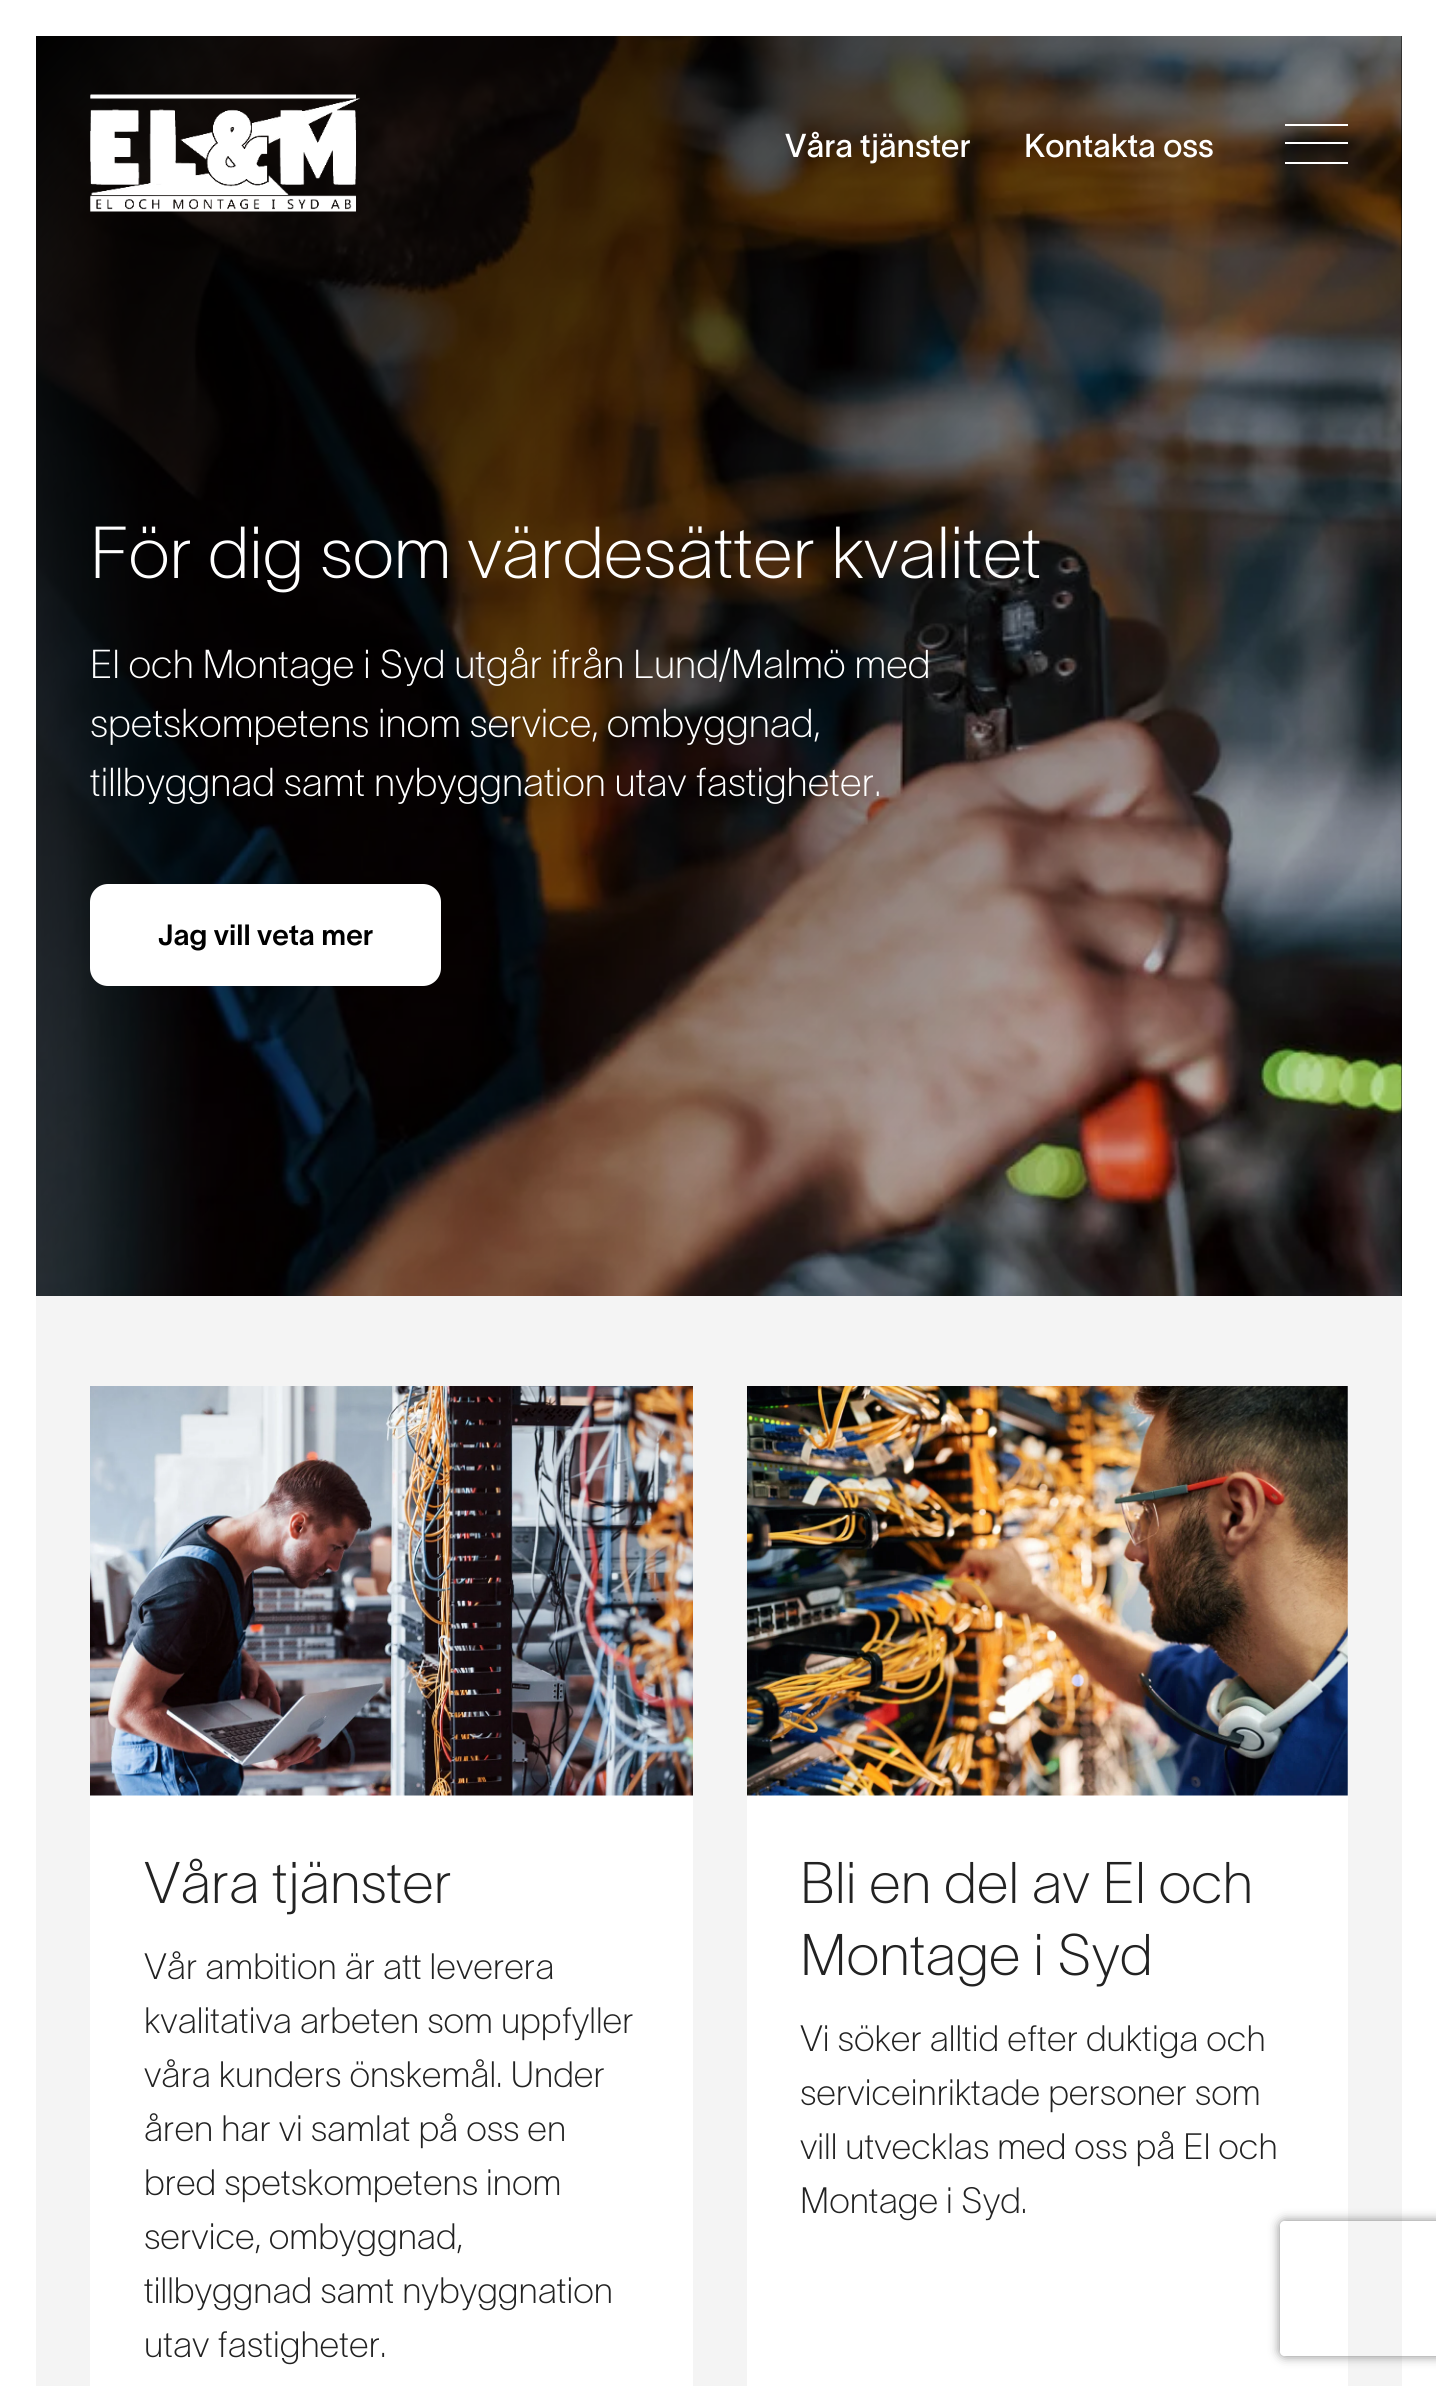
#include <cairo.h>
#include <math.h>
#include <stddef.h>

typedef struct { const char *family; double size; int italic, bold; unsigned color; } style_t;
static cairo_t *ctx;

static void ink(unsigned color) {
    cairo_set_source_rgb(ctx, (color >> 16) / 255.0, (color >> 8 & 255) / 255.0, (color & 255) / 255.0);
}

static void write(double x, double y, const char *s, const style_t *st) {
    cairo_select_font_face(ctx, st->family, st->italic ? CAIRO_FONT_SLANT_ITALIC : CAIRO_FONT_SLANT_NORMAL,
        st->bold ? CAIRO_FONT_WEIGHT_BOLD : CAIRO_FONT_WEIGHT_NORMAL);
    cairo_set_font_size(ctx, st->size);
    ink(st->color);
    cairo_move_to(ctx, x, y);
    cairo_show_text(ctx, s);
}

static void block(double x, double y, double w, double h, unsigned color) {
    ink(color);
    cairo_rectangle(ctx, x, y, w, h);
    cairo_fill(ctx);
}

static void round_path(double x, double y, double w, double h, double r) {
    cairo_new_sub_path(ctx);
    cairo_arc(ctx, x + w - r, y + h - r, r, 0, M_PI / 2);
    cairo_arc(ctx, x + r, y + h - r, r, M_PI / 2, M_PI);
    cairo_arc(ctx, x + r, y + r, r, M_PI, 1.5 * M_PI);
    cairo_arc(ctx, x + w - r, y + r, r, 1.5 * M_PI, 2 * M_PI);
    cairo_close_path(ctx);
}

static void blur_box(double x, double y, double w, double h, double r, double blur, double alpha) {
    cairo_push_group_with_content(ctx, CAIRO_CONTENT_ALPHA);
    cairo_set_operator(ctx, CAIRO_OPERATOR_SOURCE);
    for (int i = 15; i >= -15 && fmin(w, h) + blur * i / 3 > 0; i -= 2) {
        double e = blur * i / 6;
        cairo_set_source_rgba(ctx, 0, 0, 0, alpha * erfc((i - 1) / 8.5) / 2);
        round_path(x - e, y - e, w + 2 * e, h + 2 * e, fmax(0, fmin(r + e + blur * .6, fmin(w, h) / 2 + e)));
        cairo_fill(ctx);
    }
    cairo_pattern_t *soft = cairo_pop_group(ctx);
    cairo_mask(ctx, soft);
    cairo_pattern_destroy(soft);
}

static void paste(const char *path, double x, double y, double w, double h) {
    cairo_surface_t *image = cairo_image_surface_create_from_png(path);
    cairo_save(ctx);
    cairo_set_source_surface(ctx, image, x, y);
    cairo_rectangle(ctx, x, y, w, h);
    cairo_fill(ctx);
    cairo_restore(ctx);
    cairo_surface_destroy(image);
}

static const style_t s1 = {"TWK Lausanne", 32.5, 0, 0, 0xffffff};
static const style_t s2 = {"TWK Lausanne Thin", 72, 0, 0, 0xffffff};
static const style_t s3 = {"TWK Lausanne Thin", 39.6, 0, 0, 0xffffff};
static const style_t s4 = {"TWK Lausanne SemiBold", 28.75, 0, 0, 0x000000};
static const style_t s5 = {"TWK Lausanne Thin", 57.5, 0, 0, 0x222222};
static const style_t s6 = {"TWK Lausanne Thin", 36, 0, 0, 0x222222};

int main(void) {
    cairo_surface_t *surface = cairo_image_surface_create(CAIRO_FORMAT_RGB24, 1436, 2386);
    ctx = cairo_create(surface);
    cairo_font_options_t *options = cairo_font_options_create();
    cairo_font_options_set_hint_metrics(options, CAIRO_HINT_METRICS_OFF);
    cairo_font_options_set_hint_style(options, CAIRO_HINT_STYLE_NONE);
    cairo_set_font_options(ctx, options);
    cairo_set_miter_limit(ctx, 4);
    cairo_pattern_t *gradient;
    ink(0xffffff);
    cairo_paint(ctx);
    block(1401, 36, 1, 1260, 0x000000);
    paste("pic2.png", 36, 36, 1366, 1260);
    gradient = cairo_pattern_create_linear(42, 30, 1396, 1302);
    cairo_pattern_add_color_stop_rgba(gradient, 0, 0, 0, 0, 1);
    cairo_pattern_add_color_stop_rgba(gradient, 1, 0, 0, 0, 0);
    cairo_set_source(ctx, gradient);
    cairo_pattern_destroy(gradient);
    cairo_rectangle(ctx, 36, 36, 1366, 1260);
    cairo_fill(ctx);
    paste("pic1.png", 90, 94, 270, 118);
    write(785, 157, "Våra tjänster", &s1);
    write(1024, 157, "Kontakta oss", &s1);
    block(1285, 124, 63, 2, 0xffffff);
    block(1285, 142, 63, 2, 0xffffff);
    block(1285, 162, 63, 2, 0xffffff);
    block(36, 1296, 1366, 1090, 0xf4f4f4);
    write(90, 578, "För dig som värdesätter kvalitet", &s2);
    write(90, 678, "El och Montage i Syd utgår ifrån Lund/Malmö med", &s3);
    write(90, 737, "spetskompetens inom service, ombyggnad,", &s3);
    write(90, 796, "tillbyggnad samt nybyggnation utav fastigheter.", &s3);
    round_path(90, 884, 351, 102, 18);
    cairo_fill(ctx);
    write(158, 945, "Jag vill veta mer", &s4);
    block(90, 1795, 603, 591, 0xffffff);
    paste("pic3.png", 90, 1386, 603, 410);
    write(144, 1903, "Våra tjänster", &s5);
    write(144, 1979, "Vår ambition är att leverera", &s6);
    write(144, 2033, "kvalitativa arbeten som uppfyller", &s6);
    write(144, 2087, "våra kunders önskemål. Under", &s6);
    write(144, 2141, "åren har vi samlat på oss en", &s6);
    write(144, 2195, "bred spetskompetens inom", &s6);
    write(144, 2249, "service, ombyggnad,", &s6);
    write(144, 2303, "tillbyggnad samt nybyggnation", &s6);
    write(144, 2357, "utav fastigheter.", &s6);
    block(747, 1386, 601, 1000, 0xffffff);
    paste("pic4.png", 747, 1386, 601, 410);
    write(800, 1903, "Bli en del av El och", &s5);
    write(800, 1975, "Montage i Syd", &s5);
    write(800, 2051, "Vi söker alltid efter duktiga och", &s6);
    write(800, 2105, "serviceinriktade personer som", &s6);
    write(800, 2159, "vill utvecklas med oss på El och", &s6);
    write(800, 2213, "Montage i Syd.", &s6);
    cairo_save(ctx);
    cairo_set_fill_rule(ctx, CAIRO_FILL_RULE_EVEN_ODD);
    cairo_new_path(ctx);
    cairo_move_to(ctx, 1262, 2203);
    cairo_line_to(ctx, 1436, 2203);
    cairo_line_to(ctx, 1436, 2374);
    cairo_line_to(ctx, 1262, 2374);
    cairo_close_path(ctx);
    cairo_move_to(ctx, 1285, 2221);
    cairo_line_to(ctx, 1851, 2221);
    cairo_curve_to(ctx, 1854, 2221, 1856, 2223, 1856, 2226);
    cairo_line_to(ctx, 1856, 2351);
    cairo_curve_to(ctx, 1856, 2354, 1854, 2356, 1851, 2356);
    cairo_line_to(ctx, 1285, 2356);
    cairo_curve_to(ctx, 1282, 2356, 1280, 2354, 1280, 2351);
    cairo_line_to(ctx, 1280, 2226);
    cairo_curve_to(ctx, 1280, 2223, 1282, 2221, 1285, 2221);
    cairo_close_path(ctx);
    cairo_clip(ctx);
    ink(0x808080);
    blur_box(1280, 2221, 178, 135, 5, 5.5, 1);
    cairo_restore(ctx);
    cairo_surface_write_to_png(surface, "screenshot.png");
    cairo_font_options_destroy(options);
    cairo_destroy(ctx);
    cairo_surface_destroy(surface);
    return 0;
}
